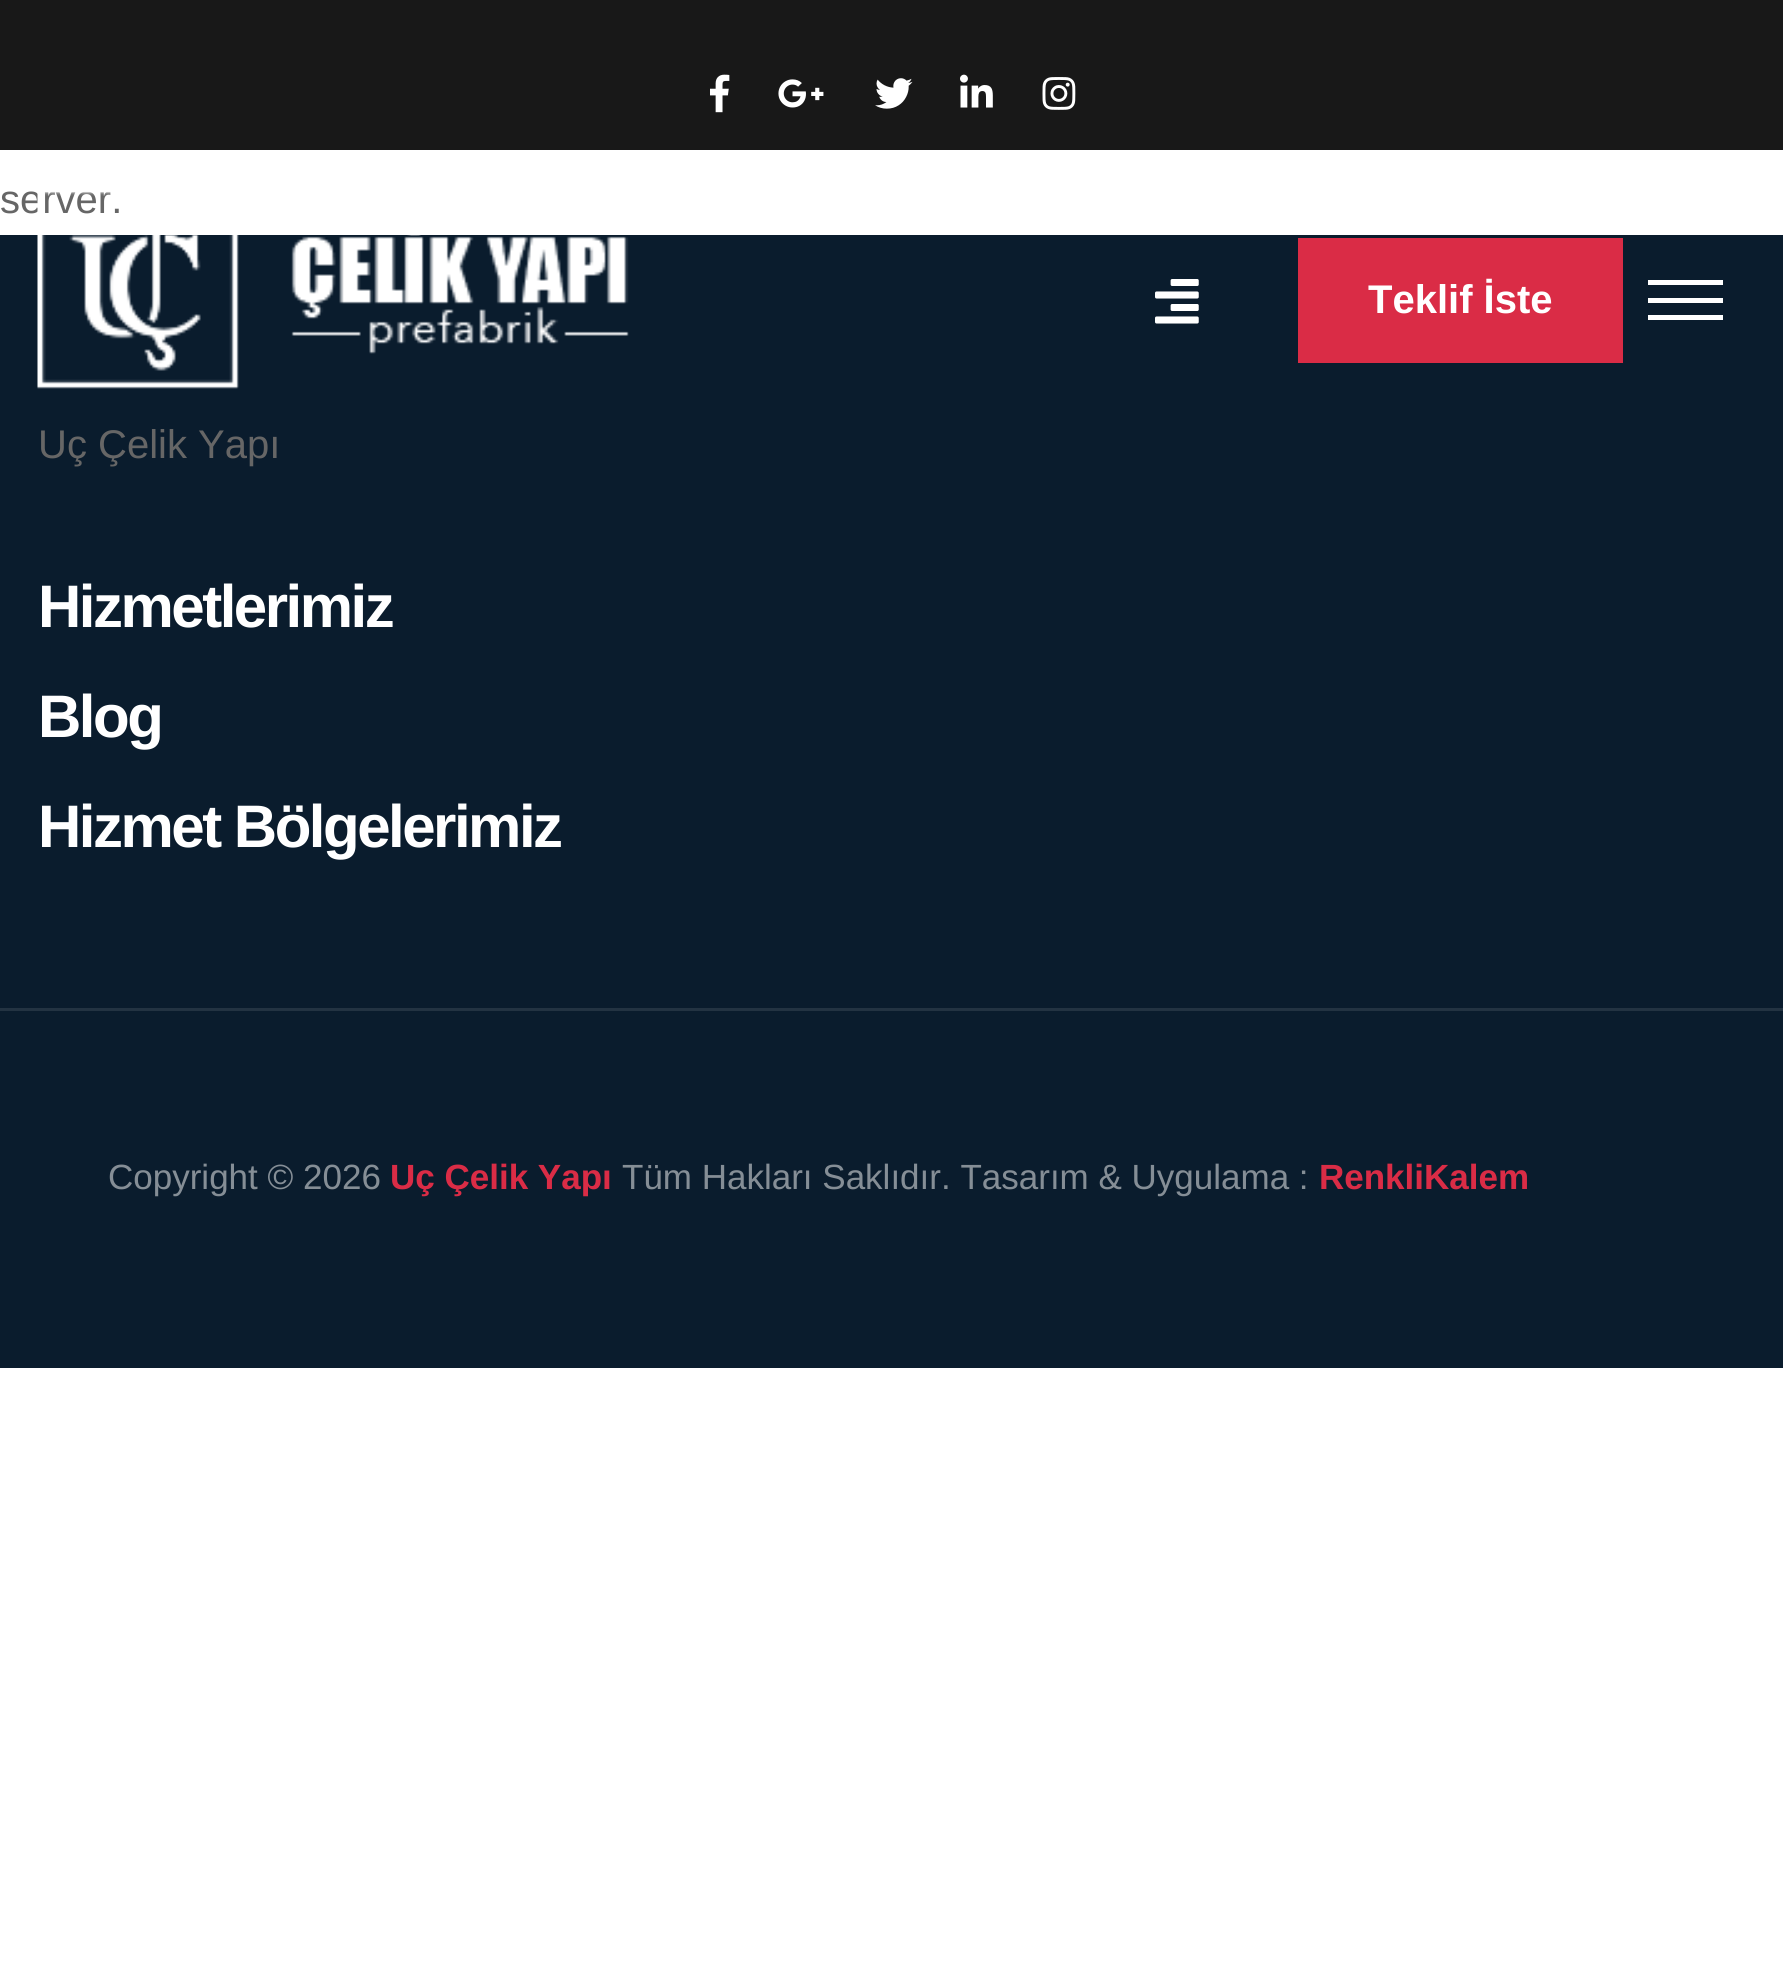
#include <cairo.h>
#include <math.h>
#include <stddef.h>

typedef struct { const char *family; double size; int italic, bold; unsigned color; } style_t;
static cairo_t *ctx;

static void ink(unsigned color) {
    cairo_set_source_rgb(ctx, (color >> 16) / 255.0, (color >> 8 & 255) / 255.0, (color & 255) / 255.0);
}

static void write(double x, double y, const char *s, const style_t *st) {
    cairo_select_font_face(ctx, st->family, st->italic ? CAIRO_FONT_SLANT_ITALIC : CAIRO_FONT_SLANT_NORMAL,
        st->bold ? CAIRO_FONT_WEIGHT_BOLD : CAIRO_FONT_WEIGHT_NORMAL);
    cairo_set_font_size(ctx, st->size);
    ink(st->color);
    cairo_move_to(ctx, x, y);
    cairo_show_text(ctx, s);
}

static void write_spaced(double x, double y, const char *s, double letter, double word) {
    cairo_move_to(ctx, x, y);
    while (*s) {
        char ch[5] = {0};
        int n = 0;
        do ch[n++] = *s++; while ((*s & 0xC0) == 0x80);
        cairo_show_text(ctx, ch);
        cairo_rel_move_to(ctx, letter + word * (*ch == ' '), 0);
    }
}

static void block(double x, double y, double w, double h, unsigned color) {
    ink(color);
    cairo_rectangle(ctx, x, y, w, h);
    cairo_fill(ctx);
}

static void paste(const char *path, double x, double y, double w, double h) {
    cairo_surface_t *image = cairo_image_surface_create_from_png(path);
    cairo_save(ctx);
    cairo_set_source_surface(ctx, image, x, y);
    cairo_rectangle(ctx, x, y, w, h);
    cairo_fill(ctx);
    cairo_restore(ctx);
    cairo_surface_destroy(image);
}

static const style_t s1 = {"Arimo", 40, 0, 0, 0x666666};
static const style_t s2 = {"Arimo", 40, 0, 1, 0xffffff};
static const style_t s3 = {"Arimo", 35, 0, 0, 0x858e96};
static const style_t s4 = {"Arimo", 35, 0, 1, 0xda2c46};

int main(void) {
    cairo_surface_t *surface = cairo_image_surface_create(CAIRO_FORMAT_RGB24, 1783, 1969);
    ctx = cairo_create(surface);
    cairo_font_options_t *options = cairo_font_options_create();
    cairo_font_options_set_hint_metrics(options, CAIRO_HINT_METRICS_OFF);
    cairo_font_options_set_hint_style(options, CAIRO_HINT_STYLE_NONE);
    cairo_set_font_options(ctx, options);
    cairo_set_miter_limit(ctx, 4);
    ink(0xffffff);
    cairo_paint(ctx);
    write(0, 213, "server.", &s1);
    block(0, 0, 1783, 150, 0x181818);
    paste("pic1.png", 710, 74, 20, 39);
    paste("pic2.png", 778, 79, 46, 29);
    paste("pic3.png", 875, 78, 38, 31);
    paste("pic4.png", 960, 74, 33, 34);
    paste("pic5.png", 1042, 77, 34, 33);
    block(0, 235, 1783, 1133, 0x0a1c2d);
    paste("pic6.png", 37, 191, 592, 198);
    paste("pic7.png", 1155, 279, 44, 45);
    block(1298, 238, 325, 125, 0xda2c46);
    write(1368, 313, "Teklif İste", &s2);
    block(1648, 280, 75, 5, 0xffffff);
    block(1648, 298, 75, 5, 0xffffff);
    block(1648, 315, 75, 5, 0xffffff);
    block(0, 1008, 1783, 3, 0x233342);
    write(38, 458, "Uç Çelik Yapı", &s1);
    cairo_select_font_face(ctx, "Arimo", CAIRO_FONT_SLANT_NORMAL, CAIRO_FONT_WEIGHT_BOLD);
    cairo_set_font_size(ctx, 60);
    ink(0xffffff);
    write_spaced(38, 627, "Hizmetlerimiz", -2.5, 0);
    write_spaced(38, 737, "Blog", -2.5, 0);
    write_spaced(38, 847, "Hizmet Bölgelerimiz", -2.5, 0);
    write(108, 1189, "Copyright © 2026", &s3);
    write(390, 1189, "Uç Çelik Yapı", &s4);
    write(622, 1189, "Tüm Hakları Saklıdır. Tasarım & Uygulama :", &s3);
    write(1319, 1189, "RenkliKalem", &s4);
    cairo_surface_write_to_png(surface, "screenshot.png");
    cairo_font_options_destroy(options);
    cairo_destroy(ctx);
    cairo_surface_destroy(surface);
    return 0;
}
